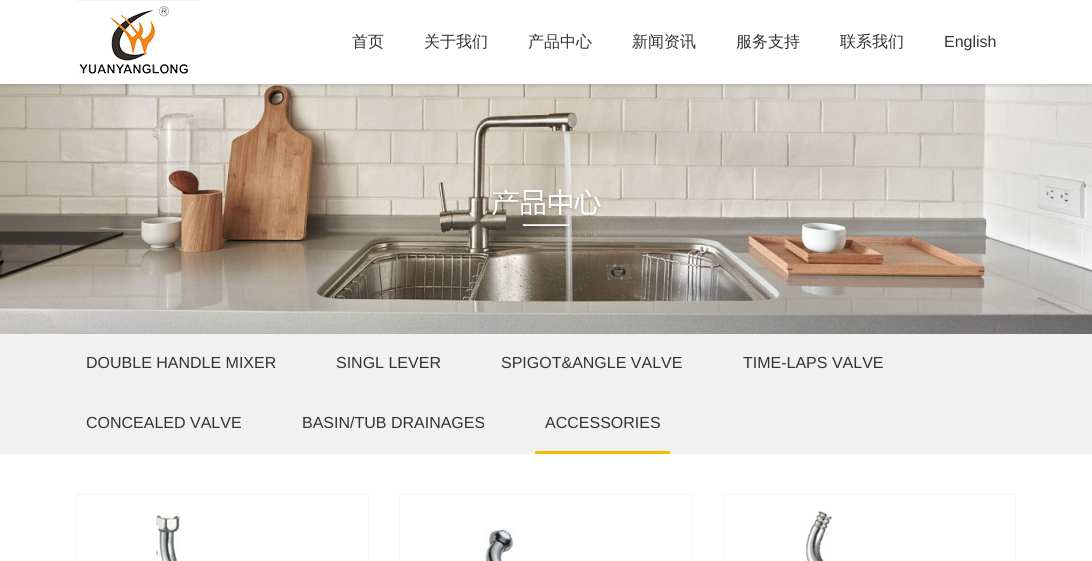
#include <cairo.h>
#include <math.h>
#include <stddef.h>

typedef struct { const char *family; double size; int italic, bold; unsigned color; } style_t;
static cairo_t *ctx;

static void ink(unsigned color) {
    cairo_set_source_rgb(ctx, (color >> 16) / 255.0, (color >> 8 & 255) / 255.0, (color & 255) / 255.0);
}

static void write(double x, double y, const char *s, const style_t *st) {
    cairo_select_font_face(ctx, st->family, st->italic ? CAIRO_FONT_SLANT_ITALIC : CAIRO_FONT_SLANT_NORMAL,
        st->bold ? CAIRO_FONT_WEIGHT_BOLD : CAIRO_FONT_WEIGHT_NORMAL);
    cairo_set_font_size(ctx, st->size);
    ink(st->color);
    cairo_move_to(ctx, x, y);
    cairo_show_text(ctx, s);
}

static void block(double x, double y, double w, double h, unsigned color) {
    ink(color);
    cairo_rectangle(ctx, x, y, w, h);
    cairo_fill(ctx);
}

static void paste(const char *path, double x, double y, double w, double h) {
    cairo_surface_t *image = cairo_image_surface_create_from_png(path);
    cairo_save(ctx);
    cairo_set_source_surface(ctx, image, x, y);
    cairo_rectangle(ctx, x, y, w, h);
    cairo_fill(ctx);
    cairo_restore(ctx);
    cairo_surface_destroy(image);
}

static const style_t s1 = {"WenQuanYi Zen Hei Medium", 16, 0, 0, 0x333333};
static const style_t s2 = {"Liberation Sans", 16, 0, 0, 0x333333};

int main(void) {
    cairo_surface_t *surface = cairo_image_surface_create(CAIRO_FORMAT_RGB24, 1092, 561);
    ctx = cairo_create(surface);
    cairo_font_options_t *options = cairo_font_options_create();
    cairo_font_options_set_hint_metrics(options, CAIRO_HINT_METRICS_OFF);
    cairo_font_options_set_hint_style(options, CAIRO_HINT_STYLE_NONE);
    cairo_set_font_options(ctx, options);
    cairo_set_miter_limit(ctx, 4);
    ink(0xffffff);
    cairo_paint(ctx);
    paste("pic1.png", 76, 0, 123, 80);
    write(352, 47, "首页", &s1);
    write(424, 47, "关于我们", &s1);
    write(528, 47, "产品中心", &s1);
    write(632, 47, "新闻资讯", &s1);
    write(736, 47, "服务支持", &s1);
    write(840, 47, "联系我们", &s1);
    write(944, 47, "English", &s2);
    paste("pic2.png", 0, 84, 1092, 250);
    block(0, 334, 1092, 120, 0xf1f1f1);
    write(86, 368, "DOUBLE HANDLE MIXER", &s2);
    write(336, 368, "SINGL LEVER", &s2);
    write(501, 368, "SPIGOT&ANGLE VALVE", &s2);
    write(743, 368, "TIME-LAPS VALVE", &s2);
    write(86, 428, "CONCEALED VALVE", &s2);
    write(302, 428, "BASIN/TUB DRAINAGES", &s2);
    block(535, 451, 135, 3, 0xf2bd04);
    write(545, 428, "ACCESSORIES", &s2);
    cairo_rectangle(ctx, 76.5, 494.5, 292, 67);
    ink(0xf4f4f4);
    cairo_set_line_width(ctx, 1);
    cairo_stroke(ctx);
    paste("pic3.png", 156, 513, 24, 48);
    cairo_rectangle(ctx, 399.5, 494.5, 293, 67);
    cairo_stroke(ctx);
    paste("pic4.png", 485, 528, 30, 33);
    cairo_rectangle(ctx, 723.5, 494.5, 292, 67);
    cairo_stroke(ctx);
    paste("pic5.png", 806, 507, 27, 54);
    cairo_surface_write_to_png(surface, "screenshot.png");
    cairo_font_options_destroy(options);
    cairo_destroy(ctx);
    cairo_surface_destroy(surface);
    return 0;
}
